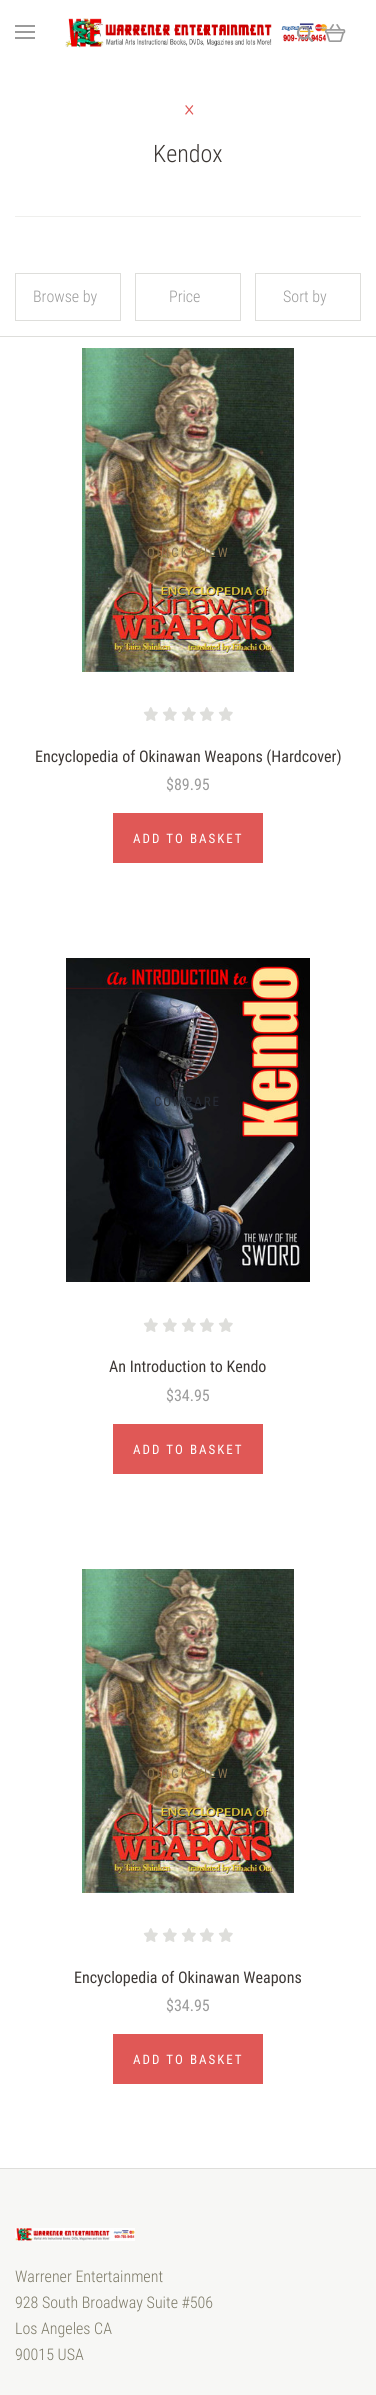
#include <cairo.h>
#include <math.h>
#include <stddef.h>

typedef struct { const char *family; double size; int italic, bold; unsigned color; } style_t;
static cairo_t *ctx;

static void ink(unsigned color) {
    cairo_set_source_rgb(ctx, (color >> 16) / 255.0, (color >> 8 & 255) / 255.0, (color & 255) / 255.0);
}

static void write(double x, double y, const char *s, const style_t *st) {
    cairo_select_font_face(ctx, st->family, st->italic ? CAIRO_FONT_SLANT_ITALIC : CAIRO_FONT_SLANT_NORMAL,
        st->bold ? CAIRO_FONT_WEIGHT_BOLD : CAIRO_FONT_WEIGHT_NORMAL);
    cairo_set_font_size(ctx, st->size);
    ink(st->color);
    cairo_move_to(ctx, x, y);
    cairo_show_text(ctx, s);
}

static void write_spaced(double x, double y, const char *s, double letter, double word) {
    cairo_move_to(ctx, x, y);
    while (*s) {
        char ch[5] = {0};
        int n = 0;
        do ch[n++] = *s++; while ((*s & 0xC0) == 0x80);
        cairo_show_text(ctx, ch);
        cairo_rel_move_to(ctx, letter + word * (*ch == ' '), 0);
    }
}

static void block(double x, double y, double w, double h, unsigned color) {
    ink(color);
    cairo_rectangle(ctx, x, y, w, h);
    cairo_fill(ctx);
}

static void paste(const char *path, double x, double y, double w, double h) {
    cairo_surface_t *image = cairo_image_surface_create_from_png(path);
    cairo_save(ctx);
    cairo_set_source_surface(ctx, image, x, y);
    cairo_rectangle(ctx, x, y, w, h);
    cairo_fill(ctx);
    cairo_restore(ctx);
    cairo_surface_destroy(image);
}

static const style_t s1 = {"Roboto Condensed Light", 23, 0, 0, 0xe05856};
static const style_t s2 = {"Roboto Condensed Light", 24, 0, 0, 0x3c3734};
static const style_t s3 = {"Roboto Condensed Light", 16, 0, 0, 0x9b9b9b};
static const style_t s4 = {"Roboto Condensed", 16, 0, 0, 0x3c3734};
static const style_t s5 = {"Roboto Condensed", 16, 0, 0, 0x9b9b9b};
static const style_t s6 = {"Roboto Condensed Light", 16, 0, 0, 0x7d7a68};

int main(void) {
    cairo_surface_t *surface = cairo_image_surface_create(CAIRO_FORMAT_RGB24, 376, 2395);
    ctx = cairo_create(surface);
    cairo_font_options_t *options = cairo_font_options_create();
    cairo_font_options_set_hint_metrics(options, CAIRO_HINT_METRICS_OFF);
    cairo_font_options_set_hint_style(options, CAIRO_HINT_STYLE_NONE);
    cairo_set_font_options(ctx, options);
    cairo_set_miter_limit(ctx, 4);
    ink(0xffffff);
    cairo_paint(ctx);
    paste("pic1.png", 65, 18, 263, 30);
    block(15, 31, 20, 2, 0x9b9b9b);
    block(15, 25, 20, 2, 0x9b9b9b);
    block(15, 37, 20, 2, 0x9b9b9b);
    paste("pic2.png", 296, 25, 17, 17);
    paste("pic3.png", 325, 24, 21, 18);
    block(15, 216, 346, 1, 0xefefed);
    write(184, 116, "×", &s1);
    write(153, 162, "Kendox", &s2);
    block(0, 336, 376, 1, 0xdededb);
    cairo_rectangle(ctx, 15.5, 273.5, 105, 47);
    cairo_set_line_width(ctx, 1);
    cairo_stroke(ctx);
    write(33, 302, "Browse by", &s3);
    cairo_rectangle(ctx, 135.5, 273.5, 105, 47);
    ink(0xdededb);
    cairo_stroke(ctx);
    write(169, 302, "Price", &s3);
    cairo_rectangle(ctx, 255.5, 273.5, 105, 47);
    ink(0xdededb);
    cairo_stroke(ctx);
    write(283, 302, "Sort by", &s3);
    paste("pic4.png", 82, 348, 212, 324);
    cairo_select_font_face(ctx, "Roboto Condensed", CAIRO_FONT_SLANT_NORMAL, CAIRO_FONT_WEIGHT_NORMAL);
    cairo_set_font_size(ctx, 13);
    ink(0x88724e);
    write_spaced(147, 557, "QUICK VIEW", 2, 0);
    paste("pic5.png", 143, 707, 15, 14);
    paste("pic5.png", 162, 707, 15, 14);
    paste("pic5.png", 181, 707, 15, 14);
    paste("pic5.png", 199, 707, 15, 14);
    paste("pic5.png", 218, 707, 15, 14);
    write(35, 762, "Encyclopedia of Okinawan Weapons (Hardcover)", &s4);
    write(166, 790, "$89.95", &s5);
    block(113, 813, 150, 50, 0xe05856);
    cairo_set_font_size(ctx, 13);
    ink(0xffffff);
    write_spaced(133, 843, "ADD TO BASKET", 2, 0);
    paste("pic6.png", 66, 958, 244, 324);
    ink(0x272c35);
    write_spaced(154, 1106, "COMPARE", 2, 0);
    ink(0x1c222b);
    write_spaced(147, 1168, "QUICK V", 2, 0);
    paste("pic5.png", 143, 1318, 15, 14);
    paste("pic5.png", 162, 1318, 15, 14);
    paste("pic5.png", 181, 1318, 15, 14);
    paste("pic5.png", 199, 1318, 15, 14);
    paste("pic5.png", 218, 1318, 15, 14);
    write(109, 1372, "An Introduction to Kendo", &s4);
    write(166, 1401, "$34.95", &s5);
    block(113, 1424, 150, 50, 0xe05856);
    cairo_set_font_size(ctx, 13);
    ink(0xffffff);
    write_spaced(133, 1454, "ADD TO BASKET", 2, 0);
    paste("pic4.png", 82, 1569, 212, 324);
    ink(0x88724e);
    write_spaced(147, 1778, "QUICK VIEW", 2, 0);
    paste("pic5.png", 143, 1928, 15, 14);
    paste("pic5.png", 162, 1928, 15, 14);
    paste("pic5.png", 181, 1928, 15, 14);
    paste("pic5.png", 199, 1928, 15, 14);
    paste("pic5.png", 218, 1928, 15, 14);
    write(74, 1983, "Encyclopedia of Okinawan Weapons", &s4);
    write(166, 2011, "$34.95", &s5);
    block(113, 2034, 150, 50, 0xe05856);
    cairo_set_font_size(ctx, 13);
    ink(0xffffff);
    write_spaced(133, 2064, "ADD TO BASKET", 2, 0);
    block(0, 2169, 376, 226, 0xf7f7f5);
    block(0, 2168, 376, 1, 0xdededb);
    paste("pic7.png", 15, 2228, 120, 13);
    write(15, 2282, "Warrener Entertainment", &s6);
    write(15, 2308, "928 South Broadway Suite #506", &s6);
    write(15, 2334, "Los Angeles CA", &s6);
    write(15, 2360, "90015 USA", &s6);
    cairo_surface_write_to_png(surface, "screenshot.png");
    cairo_font_options_destroy(options);
    cairo_destroy(ctx);
    cairo_surface_destroy(surface);
    return 0;
}
